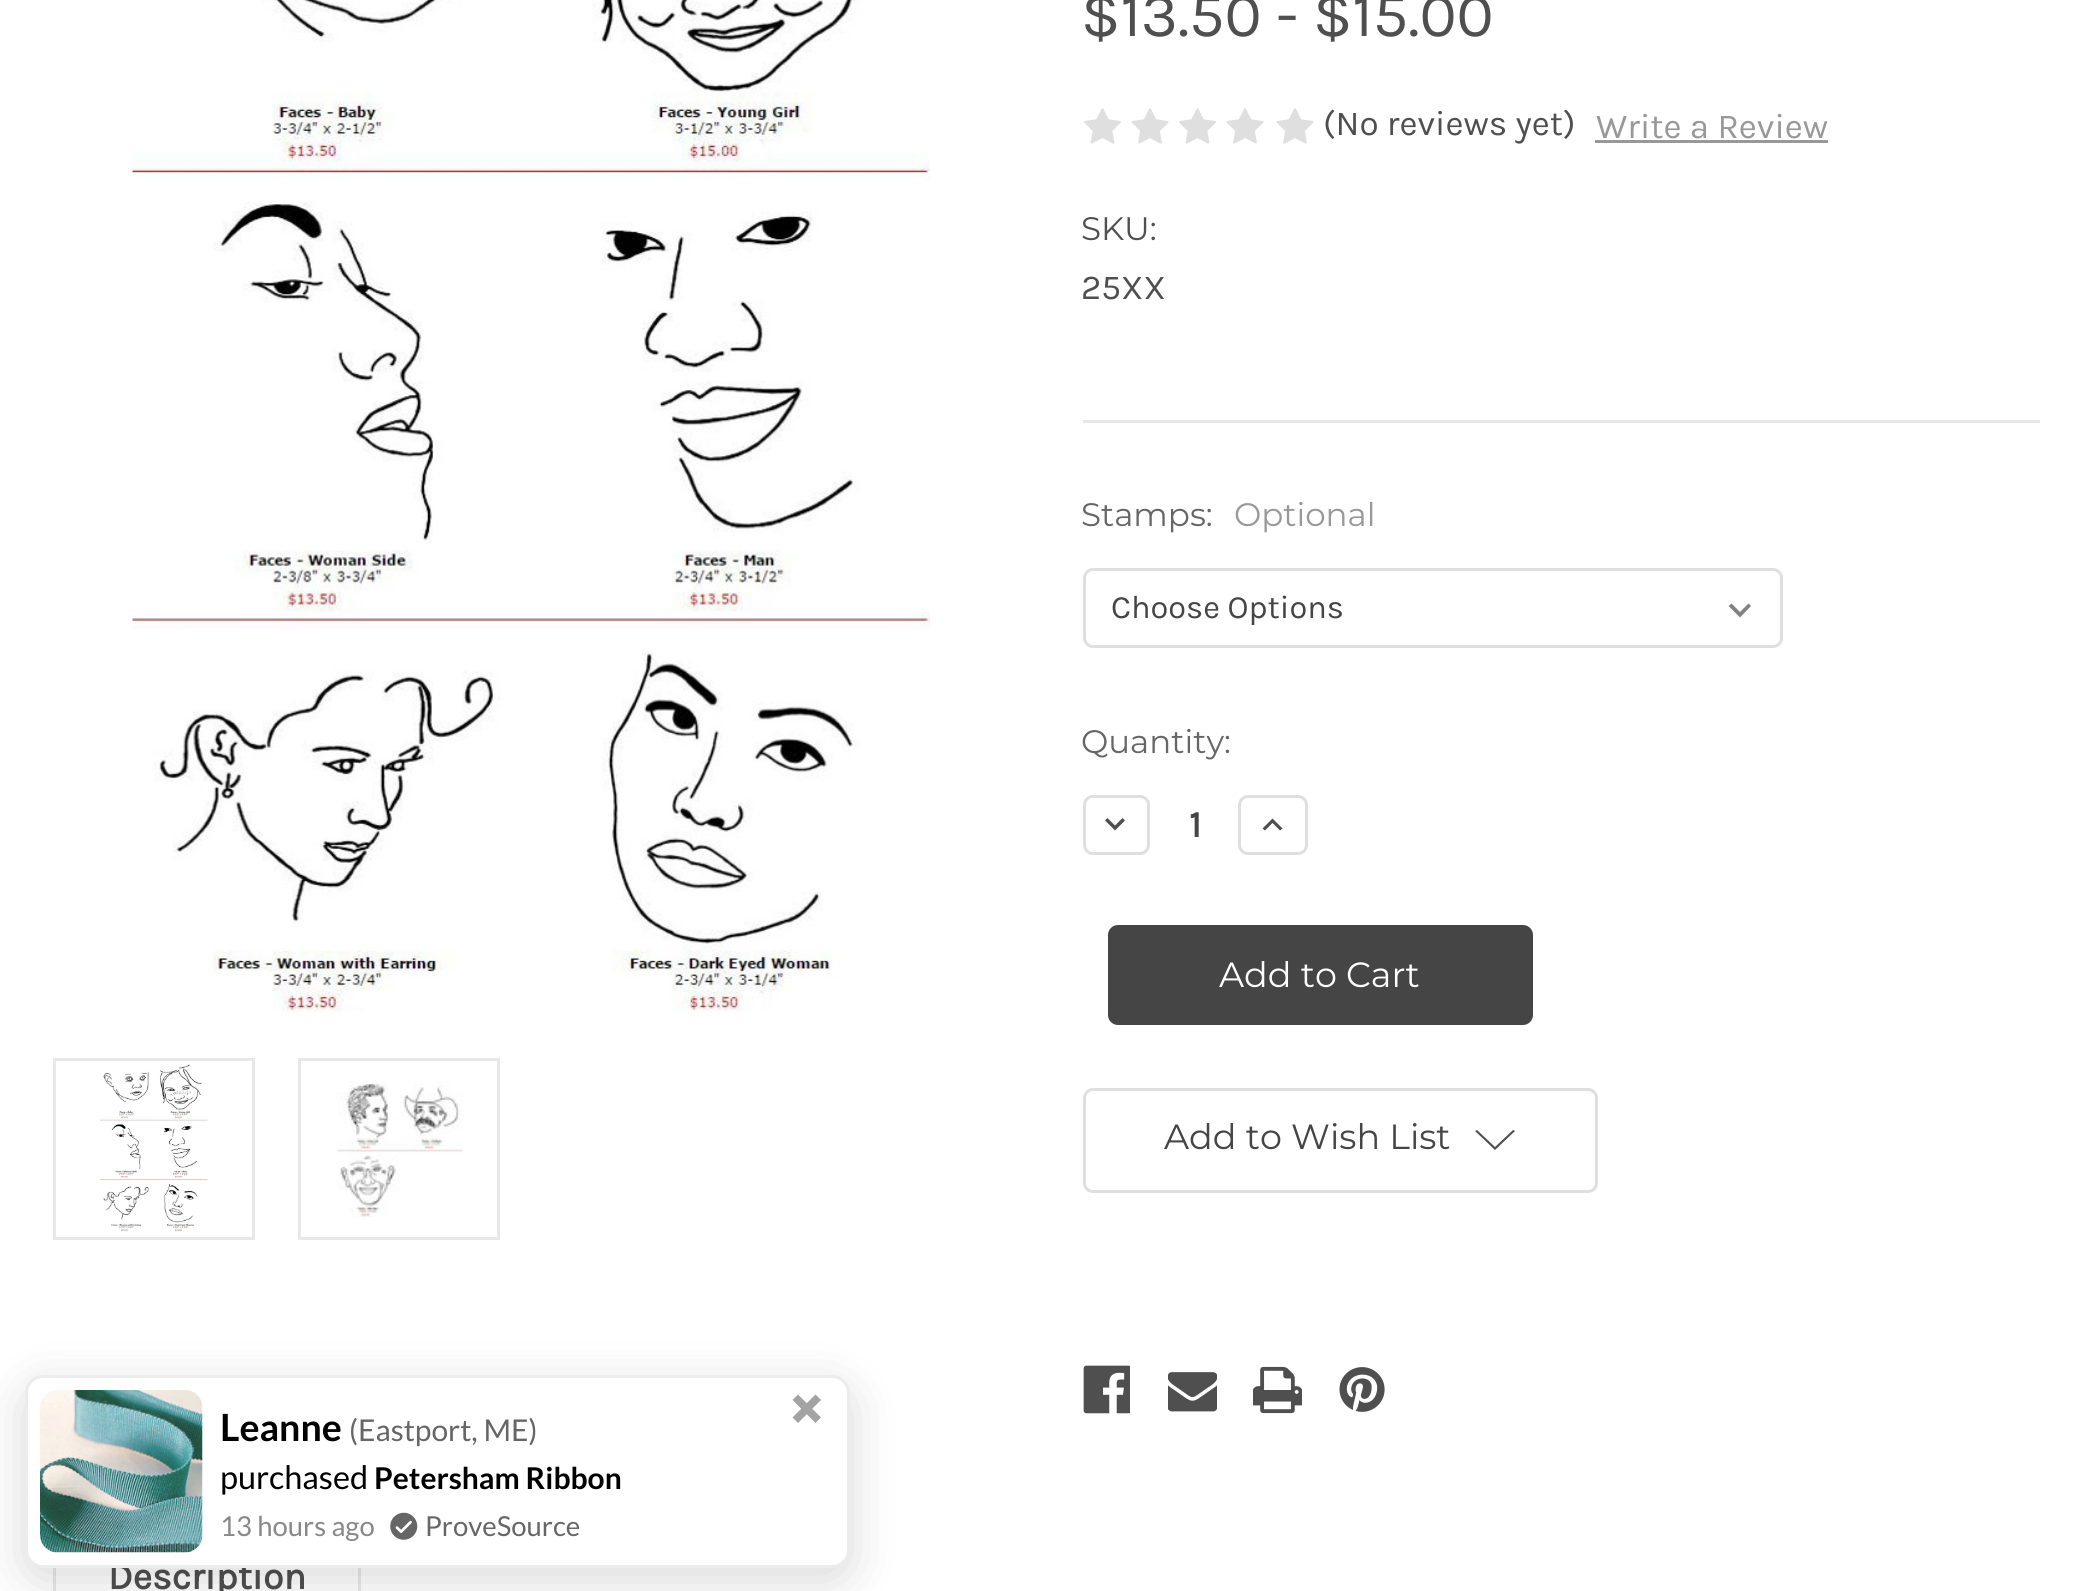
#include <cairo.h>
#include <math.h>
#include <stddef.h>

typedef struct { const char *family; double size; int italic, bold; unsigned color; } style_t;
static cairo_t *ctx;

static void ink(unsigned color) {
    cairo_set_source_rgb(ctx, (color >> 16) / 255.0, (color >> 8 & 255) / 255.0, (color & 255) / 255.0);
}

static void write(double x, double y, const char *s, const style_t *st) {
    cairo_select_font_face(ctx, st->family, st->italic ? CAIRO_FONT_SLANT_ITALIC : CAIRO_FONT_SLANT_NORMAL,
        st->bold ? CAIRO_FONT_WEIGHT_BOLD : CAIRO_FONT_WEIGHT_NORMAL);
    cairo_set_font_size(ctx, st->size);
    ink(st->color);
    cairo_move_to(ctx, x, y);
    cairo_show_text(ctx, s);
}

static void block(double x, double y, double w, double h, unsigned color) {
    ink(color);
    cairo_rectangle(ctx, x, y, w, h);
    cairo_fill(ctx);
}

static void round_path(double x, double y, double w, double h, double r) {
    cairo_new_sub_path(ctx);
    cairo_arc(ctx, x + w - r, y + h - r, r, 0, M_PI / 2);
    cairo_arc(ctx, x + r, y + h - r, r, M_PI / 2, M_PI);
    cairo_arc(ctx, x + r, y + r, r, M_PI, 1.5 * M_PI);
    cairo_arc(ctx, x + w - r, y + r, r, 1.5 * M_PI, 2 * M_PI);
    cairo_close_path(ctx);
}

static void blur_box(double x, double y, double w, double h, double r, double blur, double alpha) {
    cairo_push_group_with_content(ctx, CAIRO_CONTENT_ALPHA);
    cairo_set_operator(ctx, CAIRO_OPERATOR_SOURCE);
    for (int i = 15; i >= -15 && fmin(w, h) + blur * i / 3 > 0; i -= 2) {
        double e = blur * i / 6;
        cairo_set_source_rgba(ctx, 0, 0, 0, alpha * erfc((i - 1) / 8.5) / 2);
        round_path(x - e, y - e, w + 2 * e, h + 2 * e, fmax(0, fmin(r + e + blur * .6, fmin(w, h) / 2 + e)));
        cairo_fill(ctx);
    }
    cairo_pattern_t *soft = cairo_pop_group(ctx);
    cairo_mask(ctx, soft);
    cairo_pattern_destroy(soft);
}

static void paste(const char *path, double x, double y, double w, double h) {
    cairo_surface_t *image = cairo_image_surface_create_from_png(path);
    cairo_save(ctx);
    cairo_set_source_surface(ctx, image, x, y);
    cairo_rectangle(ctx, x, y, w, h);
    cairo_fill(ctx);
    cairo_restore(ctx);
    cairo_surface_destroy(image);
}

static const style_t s1 = {"Karla", 62.5, 0, 0, 0x4f4f4f};
static const style_t s2 = {"Karla", 35, 0, 0, 0x4f4f4f};
static const style_t s3 = {"Karla", 35, 0, 0, 0x989898};
static const style_t s4 = {"Montserrat Thin", 32.5, 0, 0, 0x4f4f4f};
static const style_t s5 = {"Montserrat Thin", 32.5, 0, 0, 0x666666};
static const style_t s6 = {"Montserrat Thin", 32.5, 0, 0, 0x989898};
static const style_t s7 = {"Karla", 32.5, 0, 0, 0x454545};
static const style_t s8 = {"Karla", 37.5, 0, 1, 0x454545};
static const style_t s9 = {"Montserrat Thin", 35, 0, 0, 0xffffff};
static const style_t s10 = {"Montserrat Thin", 35, 0, 0, 0x454545};
static const style_t s11 = {"Karla", 37.5, 0, 1, 0x4f4f4f};
static const style_t s12 = {"Lato", 37.5, 0, 1, 0x000000};
static const style_t s13 = {"Lato", 30, 0, 0, 0x666666};
static const style_t s14 = {"Lato", 32.5, 0, 0, 0x000000};
static const style_t s15 = {"Lato", 30, 0, 1, 0x000000};
static const style_t s16 = {"Lato", 27.5, 0, 0, 0x888888};
static const style_t s17 = {"Lato", 27.5, 0, 0, 0x666666};

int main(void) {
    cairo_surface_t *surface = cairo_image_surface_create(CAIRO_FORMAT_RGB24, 2091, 1591);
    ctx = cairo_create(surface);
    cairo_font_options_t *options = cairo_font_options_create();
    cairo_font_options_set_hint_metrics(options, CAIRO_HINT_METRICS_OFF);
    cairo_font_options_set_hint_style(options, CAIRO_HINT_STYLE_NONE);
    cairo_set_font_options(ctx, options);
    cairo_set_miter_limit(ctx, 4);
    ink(0xffffff);
    cairo_paint(ctx);
    paste("pic1.png", 132, 0, 798, 1017);
    cairo_rectangle(ctx, 54.5, 1059.5, 199, 179);
    ink(0xe8e8e8);
    cairo_set_line_width(ctx, 3);
    cairo_stroke(ctx);
    paste("pic2.png", 100, 1064, 108, 168);
    cairo_rectangle(ctx, 299.5, 1059.5, 199, 179);
    cairo_stroke(ctx);
    paste("pic3.png", 337, 1081, 126, 136);
    block(1083, 420, 957, 3, 0xe8e8e8);
    write(1081, 36, "$13.50 - $15.00", &s1);
    paste("pic4.png", 1084, 108, 37, 36);
    paste("pic5.png", 1131, 108, 38, 36);
    paste("pic4.png", 1179, 108, 37, 36);
    paste("pic5.png", 1226, 108, 38, 36);
    paste("pic5.png", 1276, 108, 38, 36);
    write(1323, 135, "(No reviews yet)", &s2);
    write(1596, 138, "Write a Review", &s3);
    block(1595, 140, 233, 3, 0x989898);
    write(1081, 240, "SKU:", &s4);
    write(1081, 299, "25XX", &s2);
    write(1081, 526, "Stamps:", &s5);
    write(1234, 526, "Optional", &s6);
    ink(0x828282);
    cairo_new_path(ctx);
    cairo_move_to(ctx, 1748.5, 603.5);
    cairo_line_to(ctx, 1740, 612);
    cairo_line_to(ctx, 1731.5, 603.5);
    cairo_line_to(ctx, 1728.5, 606);
    cairo_line_to(ctx, 1740, 617.5);
    cairo_line_to(ctx, 1751, 606);
    cairo_close_path(ctx);
    cairo_fill(ctx);
    round_path(1084.5, 569.5, 697, 77, 8.5);
    ink(0xdfdfdf);
    cairo_stroke(ctx);
    cairo_save(ctx);
    cairo_rectangle(ctx, 1110, 590, 600, 35);
    cairo_clip(ctx);
    write(1111, 618, "Choose Options", &s7);
    cairo_restore(ctx);
    write(1081, 753, "Quantity:", &s5);
    round_path(1084.5, 796.5, 64, 57, 8.5);
    ink(0xdfdfdf);
    cairo_stroke(ctx);
    ink(0x4f4f4f);
    cairo_new_path(ctx);
    cairo_move_to(ctx, 1107.5, 818);
    cairo_line_to(ctx, 1115, 825.5);
    cairo_line_to(ctx, 1122.5, 818);
    cairo_line_to(ctx, 1125, 820.5);
    cairo_line_to(ctx, 1115, 830.5);
    cairo_line_to(ctx, 1105, 820.5);
    cairo_close_path(ctx);
    cairo_fill(ctx);
    write(1189, 837, "1", &s8);
    round_path(1239.5, 796.5, 67, 57, 8.5);
    ink(0xdfdfdf);
    cairo_stroke(ctx);
    ink(0x4f4f4f);
    cairo_new_path(ctx);
    cairo_move_to(ctx, 1265, 830.5);
    cairo_line_to(ctx, 1272.5, 823);
    cairo_line_to(ctx, 1280, 830.5);
    cairo_line_to(ctx, 1282.5, 828.5);
    cairo_line_to(ctx, 1272.5, 818.5);
    cairo_line_to(ctx, 1262.5, 828.5);
    cairo_close_path(ctx);
    cairo_fill(ctx);
    ink(0x454545);
    round_path(1109.5, 926.5, 422, 97, 8.5);
    cairo_fill_preserve(ctx);
    cairo_stroke(ctx);
    write(1219, 987, "Add to Cart", &s9);
    round_path(1084.5, 1089.5, 512, 102, 8.5);
    ink(0xdfdfdf);
    cairo_stroke(ctx);
    write(1164, 1149, "Add to Wish List", &s10);
    ink(0x4f4f4f);
    cairo_set_fill_rule(ctx, CAIRO_FILL_RULE_EVEN_ODD);
    cairo_new_path(ctx);
    cairo_move_to(ctx, 1495, 1147);
    cairo_line_to(ctx, 1513, 1130);
    cairo_line_to(ctx, 1515, 1131);
    cairo_line_to(ctx, 1495, 1150);
    cairo_line_to(ctx, 1475, 1131);
    cairo_line_to(ctx, 1477, 1130);
    cairo_close_path(ctx);
    cairo_fill(ctx);
    paste("pic6.png", 1083, 1365, 47, 49);
    paste("pic7.png", 1168, 1372, 49, 40);
    paste("pic8.png", 1253, 1366, 49, 48);
    paste("pic9.png", 1339, 1367, 46, 45);
    block(358, 1568, 3, 23, 0xe8e8e8);
    block(53, 1568, 3, 23, 0xe8e8e8);
    write(108, 1589, "Description", &s11);
    ink(0x000000);
    blur_box(25, 1388, 825, 192, 18, 25, 0.15);
    ink(0xffffff);
    round_path(26.5, 1376.5, 822, 190, 16.5);
    cairo_fill_preserve(ctx);
    ink(0xececec);
    cairo_stroke(ctx);
    ink(0xa3a3a3);
    cairo_set_fill_rule(ctx, CAIRO_FILL_RULE_WINDING);
    cairo_new_path(ctx);
    cairo_move_to(ctx, 798, 1394.5);
    cairo_line_to(ctx, 821, 1417.5);
    cairo_line_to(ctx, 815.5, 1423);
    cairo_line_to(ctx, 792.5, 1400);
    cairo_close_path(ctx);
    cairo_fill(ctx);
    cairo_new_path(ctx);
    cairo_move_to(ctx, 815.5, 1394.5);
    cairo_line_to(ctx, 821, 1400);
    cairo_line_to(ctx, 798, 1423);
    cairo_line_to(ctx, 792.5, 1417.5);
    cairo_close_path(ctx);
    cairo_fill(ctx);
    paste("pic10.png", 40, 1390, 163, 163);
    write(220, 1441, "Leanne", &s12);
    write(349, 1441, "(Eastport, ME)", &s13);
    write(220, 1489, "purchased", &s14);
    write(374, 1489, "Petersham Ribbon", &s15);
    write(220, 1536, "13 hours ago", &s16);
    paste("pic11.png", 390, 1512, 28, 28);
    write(425, 1536, "ProveSource", &s17);
    cairo_surface_write_to_png(surface, "screenshot.png");
    cairo_font_options_destroy(options);
    cairo_destroy(ctx);
    cairo_surface_destroy(surface);
    return 0;
}
